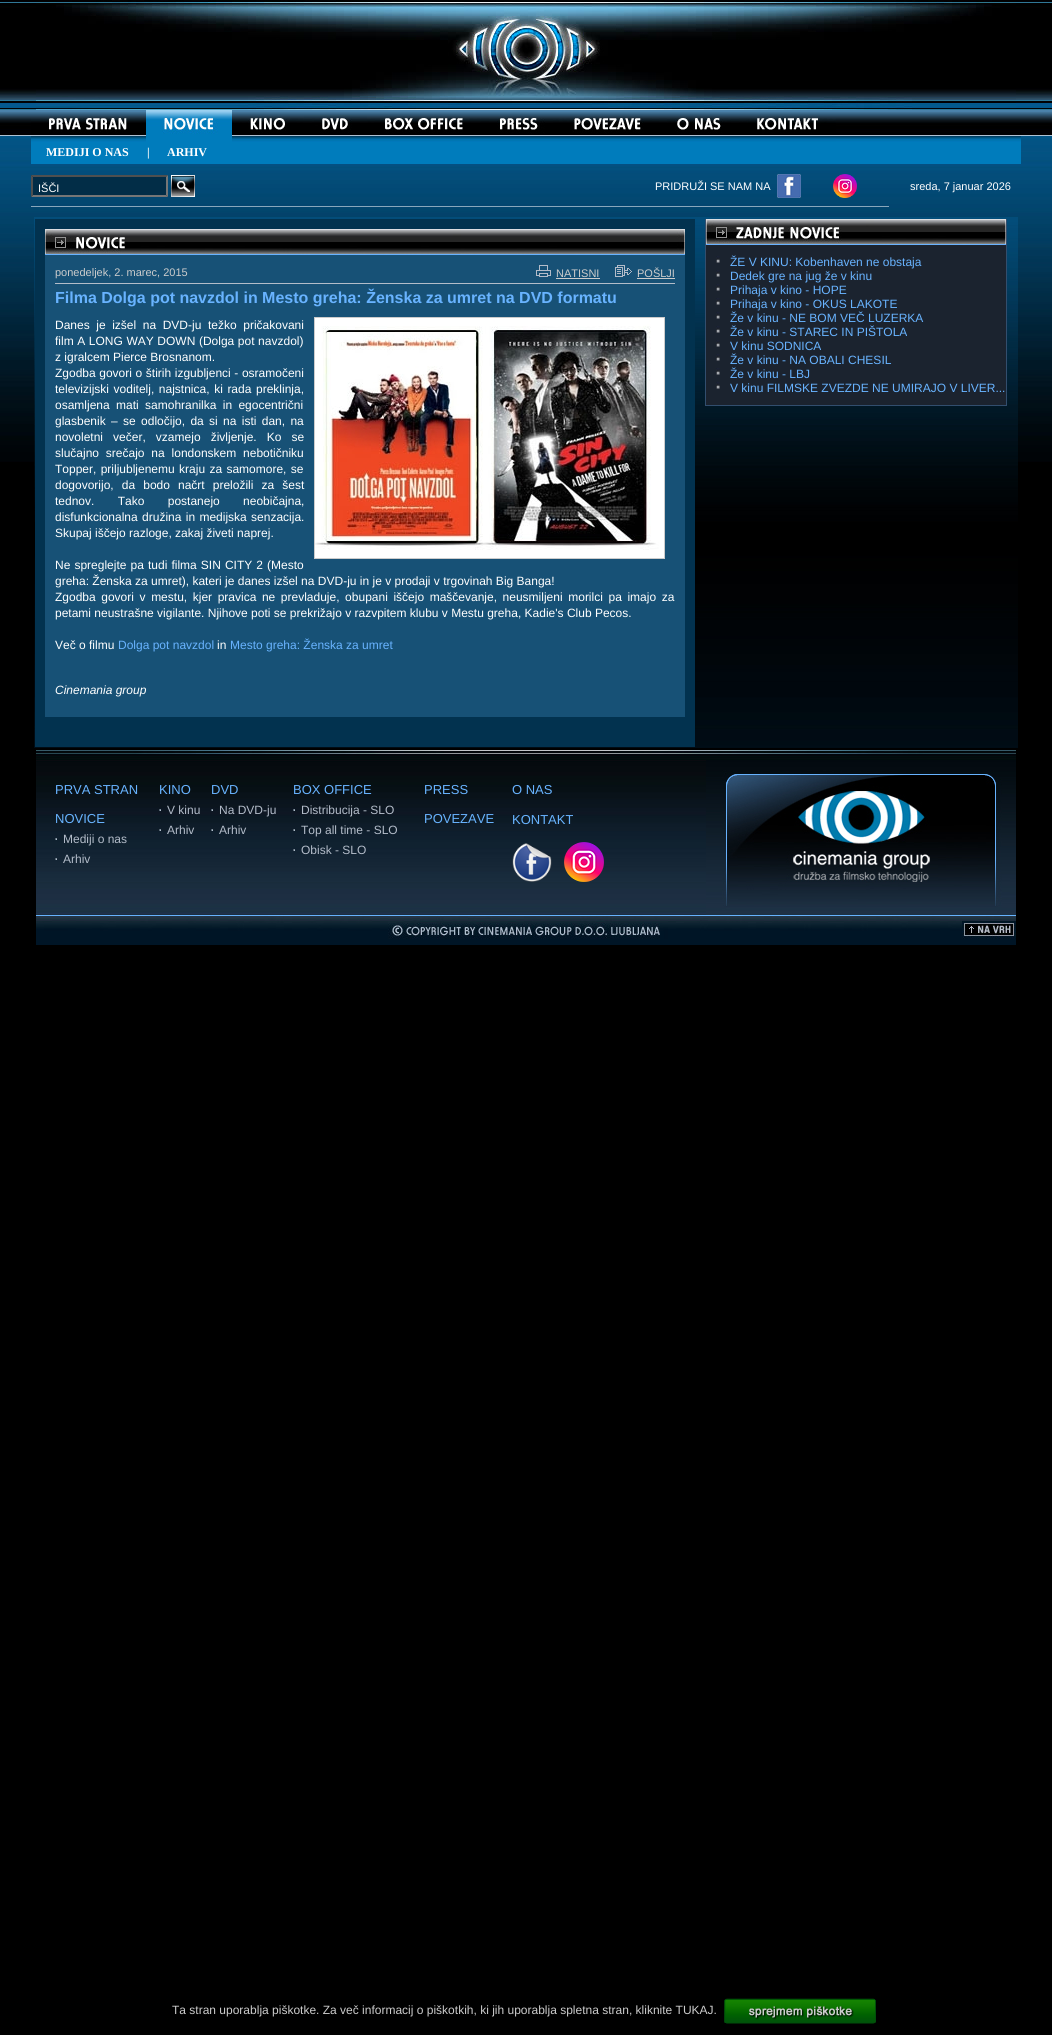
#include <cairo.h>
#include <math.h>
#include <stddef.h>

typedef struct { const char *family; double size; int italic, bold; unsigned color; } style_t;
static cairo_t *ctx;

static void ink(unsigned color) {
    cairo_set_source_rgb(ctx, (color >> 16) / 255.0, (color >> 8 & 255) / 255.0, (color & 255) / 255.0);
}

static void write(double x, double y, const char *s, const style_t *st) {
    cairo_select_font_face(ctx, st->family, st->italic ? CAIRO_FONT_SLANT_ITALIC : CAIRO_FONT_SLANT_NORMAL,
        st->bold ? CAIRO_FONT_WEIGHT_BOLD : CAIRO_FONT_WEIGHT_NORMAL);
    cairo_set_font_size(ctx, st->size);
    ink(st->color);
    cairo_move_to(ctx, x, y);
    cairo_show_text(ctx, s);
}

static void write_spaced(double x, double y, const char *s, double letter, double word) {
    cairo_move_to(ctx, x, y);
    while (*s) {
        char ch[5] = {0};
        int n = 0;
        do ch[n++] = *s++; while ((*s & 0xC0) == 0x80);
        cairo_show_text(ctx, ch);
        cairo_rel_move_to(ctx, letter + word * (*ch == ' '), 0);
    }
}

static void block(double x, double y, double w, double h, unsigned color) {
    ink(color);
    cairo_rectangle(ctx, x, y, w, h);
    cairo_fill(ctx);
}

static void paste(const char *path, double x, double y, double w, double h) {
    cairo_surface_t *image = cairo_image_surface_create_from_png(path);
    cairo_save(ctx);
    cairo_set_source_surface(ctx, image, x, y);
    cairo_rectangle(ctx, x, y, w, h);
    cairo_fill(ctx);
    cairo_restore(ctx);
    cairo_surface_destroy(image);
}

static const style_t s1 = {"Liberation Serif", 12, 0, 1, 0xffffff};
static const style_t s2 = {"Liberation Sans", 11, 0, 0, 0xffffff};
static const style_t s3 = {"Liberation Sans", 11, 0, 0, 0xcccccc};
static const style_t s4 = {"Liberation Sans", 16, 0, 1, 0x68b3ff};
static const style_t s5 = {"Liberation Sans", 12, 0, 0, 0xffffff};
static const style_t s6 = {"Liberation Sans", 12, 0, 0, 0x68b3ff};
static const style_t s7 = {"Liberation Sans", 12, 1, 0, 0xffffff};
static const style_t s8 = {"Liberation Sans", 13, 0, 0, 0x68b3ff};
static const style_t s9 = {"Liberation Sans", 12, 0, 0, 0xb3bcc9};
static const style_t s10 = {"Liberation Sans", 12, 0, 0, 0xcccccc};

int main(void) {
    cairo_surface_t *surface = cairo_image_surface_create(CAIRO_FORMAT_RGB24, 1052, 2035);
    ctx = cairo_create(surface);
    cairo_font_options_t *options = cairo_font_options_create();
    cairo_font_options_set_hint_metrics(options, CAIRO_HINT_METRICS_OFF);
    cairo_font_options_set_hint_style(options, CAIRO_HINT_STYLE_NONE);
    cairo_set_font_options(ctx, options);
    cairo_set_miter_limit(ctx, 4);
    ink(0x000000);
    cairo_paint(ctx);
    paste("pic1.png", 0, 1, 1052, 461);
    paste("pic2.png", 36, 0, 980, 110);
    paste("pic3.png", 31, 118, 115, 27);
    paste("pic4.png", 146, 110, 86, 35);
    paste("pic5.png", 232, 118, 72, 27);
    paste("pic6.png", 304, 115, 63, 30);
    paste("pic7.png", 367, 118, 114, 27);
    paste("pic8.png", 481, 118, 75, 27);
    paste("pic9.png", 556, 118, 103, 27);
    paste("pic10.png", 659, 118, 80, 27);
    paste("pic11.png", 739, 118, 97, 27);
    paste("pic12.png", 836, 132, 185, 13);
    block(31, 145, 990, 19, 0x007cbc);
    write(46, 156, "MEDIJI O NAS", &s1);
    write(147, 156, "|", &s1);
    write(167, 156, "ARHIV", &s1);
    block(31, 175, 137, 22, 0x022d47);
    ink(0x4f4f4f);
    cairo_new_path(ctx);
    cairo_move_to(ctx, 31, 175);
    cairo_line_to(ctx, 168, 175);
    cairo_line_to(ctx, 166, 177);
    cairo_line_to(ctx, 33, 177);
    cairo_close_path(ctx);
    cairo_fill(ctx);
    ink(0x767676);
    cairo_new_path(ctx);
    cairo_move_to(ctx, 168, 175);
    cairo_line_to(ctx, 168, 197);
    cairo_line_to(ctx, 166, 195);
    cairo_line_to(ctx, 166, 177);
    cairo_close_path(ctx);
    cairo_fill(ctx);
    cairo_new_path(ctx);
    cairo_move_to(ctx, 168, 197);
    cairo_line_to(ctx, 31, 197);
    cairo_line_to(ctx, 33, 195);
    cairo_line_to(ctx, 166, 195);
    cairo_close_path(ctx);
    cairo_fill(ctx);
    ink(0x4f4f4f);
    cairo_new_path(ctx);
    cairo_move_to(ctx, 31, 197);
    cairo_line_to(ctx, 31, 175);
    cairo_line_to(ctx, 33, 177);
    cairo_line_to(ctx, 33, 195);
    cairo_close_path(ctx);
    cairo_fill(ctx);
    write(38, 192, "IŠČI", &s2);
    paste("pic13.png", 171, 175, 24, 22);
    write(655, 190, "PRIDRUŽI SE NAM NA", &s2);
    paste("pic14.png", 777, 174, 24, 24);
    paste("pic15.png", 833, 174, 24, 24);
    write(910, 190, "sreda, 7 januar 2026", &s2);
    block(31, 206, 858, 1, 0x88a7bb);
    paste("pic16.png", 34, 217, 984, 531);
    block(35, 219, 660, 528, 0x02324f);
    block(45, 255, 640, 462, 0x175176);
    paste("pic17.png", 45, 229, 640, 26);
    write(55, 276, "ponedeljek, 2. marec, 2015", &s3);
    paste("pic18.png", 536, 265, 15, 12);
    write(556, 277, "NATISNI", &s3);
    block(556, 278, 44, 1, 0xcccccc);
    paste("pic19.png", 615, 265, 17, 12);
    write(637, 277, "POŠLJI", &s3);
    block(637, 278, 38, 1, 0xcccccc);
    block(55, 283, 620, 1, 0xb3bdc9);
    write(55, 303, "Filma Dolga pot navzdol in Mesto greha: Ženska za umret na DVD formatu", &s4);
    cairo_select_font_face(ctx, "Liberation Sans", CAIRO_FONT_SLANT_NORMAL, CAIRO_FONT_WEIGHT_NORMAL);
    cairo_set_font_size(ctx, 12);
    ink(0xffffff);
    write_spaced(55, 329, "Danes je izšel na DVD-ju težko pričakovani", 0, 3.25);
    cairo_rectangle(ctx, 314.5, 317.5, 350, 241);
    ink(0xcccccc);
    cairo_set_line_width(ctx, 1);
    cairo_stroke(ctx);
    paste("pic20.png", 315, 318, 349, 240);
    ink(0xffffff);
    write_spaced(55, 345, "film A LONG WAY DOWN (Dolga pot navzdol)", 0, 0.25);
    write(55, 361, "z igralcem Pierce Brosnanom.", &s5);
    write_spaced(55, 377, "Zgodba govori o štirih izgubljenci - osramočeni", 0, 0.25);
    write_spaced(55, 393, "televizijski voditelj, najstnica, ki rada preklinja,", 0, 1.25);
    write_spaced(55, 409, "osamljena mati samohranilka in egocentrični", 0, 3);
    write_spaced(55, 425, "glasbenik – se odločijo, da si na isti dan, na", 0, 2);
    write_spaced(55, 441, "novoletni večer, vzamejo življenje. Ko se", 0, 6.75);
    write_spaced(55, 457, "slučajno srečajo na londonskem nebotičniku", 0, 3.5);
    write_spaced(55, 473, "Topper, priljubljenemu kraju za samomore, se", 0, 1);
    write_spaced(55, 489, "dogovorijo, da bodo načrt preložili za šest", 0, 4.75);
    write_spaced(55, 505, "tednov. Tako postanejo neobičajna,", 0, 20);
    write_spaced(55, 521, "disfunkcionalna družina in medijska senzacija.", 0, 1);
    write(55, 537, "Skupaj iščejo razloge, zakaj živeti naprej.", &s5);
    write_spaced(55, 569, "Ne spreglejte pa tudi filma SIN CITY 2 (Mesto", 0, 0.75);
    write(55, 585, "greha: Ženska za umret), kateri je danes izšel na DVD-ju in je v prodaji v trgovinah Big Banga!", &s5);
    write_spaced(55, 601, "Zgodba govori v mestu, kjer pravica ne prevladuje, obupani iščejo maščevanje, neusmiljeni morilci pa imajo za", 0, 2.25);
    write(55, 617, "petami neustrašne vigilante. Njihove poti se prekrižajo v razvpitem klubu v Mestu greha, Kadie's Club Pecos.", &s5);
    write(55, 649, "Več o filmu", &s5);
    write(118, 649, "Dolga pot navzdol", &s6);
    write(217, 649, "in", &s5);
    write(230, 649, "Mesto greha: Ženska za umret", &s6);
    write(55, 694, "Cinemania group", &s7);
    block(706, 245, 300, 160, 0x1b232f);
    block(1006, 219, 1, 187, 0x324e6e);
    block(705, 405, 302, 1, 0x324e6e);
    block(705, 219, 1, 187, 0x324e6e);
    paste("pic21.png", 706, 219, 300, 26);
    paste("pic22.png", 716, 256, 4, 7);
    write(730, 266, "ŽE V KINU: Kobenhaven ne obstaja", &s6);
    paste("pic22.png", 716, 270, 4, 7);
    write(730, 280, "Dedek gre na jug že v kinu", &s6);
    paste("pic22.png", 716, 284, 4, 7);
    write(730, 294, "Prihaja v kino - HOPE", &s6);
    paste("pic22.png", 716, 298, 4, 7);
    write(730, 308, "Prihaja v kino - OKUS LAKOTE", &s6);
    paste("pic22.png", 716, 312, 4, 7);
    write(730, 322, "Že v kinu - NE BOM VEČ LUZERKA", &s6);
    paste("pic22.png", 716, 326, 4, 7);
    write(730, 336, "Že v kinu - STAREC IN PIŠTOLA", &s6);
    paste("pic22.png", 716, 340, 4, 7);
    write(730, 350, "V kinu SODNICA", &s6);
    paste("pic22.png", 716, 354, 4, 7);
    write(730, 364, "Že v kinu - NA OBALI CHESIL", &s6);
    paste("pic22.png", 716, 368, 4, 7);
    write(730, 378, "Že v kinu - LBJ", &s6);
    paste("pic22.png", 716, 382, 4, 7);
    write(730, 392, "V kinu FILMSKE ZVEZDE NE UMIRAJO V LIVER...", &s6);
    paste("pic23.png", 36, 750, 980, 4);
    paste("pic24.png", 36, 754, 980, 161);
    write(55, 794, "PRVA STRAN", &s8);
    write(55, 823, "NOVICE", &s8);
    paste("pic25.png", 55, 838, 2, 2);
    write(63, 843, "Mediji o nas", &s9);
    paste("pic25.png", 55, 858, 2, 2);
    write(63, 863, "Arhiv", &s9);
    write(159, 794, "KINO", &s8);
    paste("pic25.png", 159, 809, 2, 2);
    write(167, 814, "V kinu", &s9);
    paste("pic25.png", 159, 829, 2, 2);
    write(167, 834, "Arhiv", &s9);
    write(211, 794, "DVD", &s8);
    paste("pic25.png", 211, 809, 2, 2);
    write(219, 814, "Na DVD-ju", &s9);
    paste("pic25.png", 211, 829, 2, 2);
    write(219, 834, "Arhiv", &s9);
    write(293, 794, "BOX OFFICE", &s8);
    paste("pic25.png", 293, 809, 2, 2);
    write(301, 814, "Distribucija - SLO", &s9);
    paste("pic25.png", 293, 829, 2, 2);
    write(301, 834, "Top all time - SLO", &s9);
    paste("pic25.png", 293, 849, 2, 2);
    write(301, 854, "Obisk - SLO", &s9);
    write(424, 794, "PRESS", &s8);
    write(424, 823, "POVEZAVE", &s8);
    write(512, 794, "O NAS", &s8);
    write(512, 824, "KONTAKT", &s8);
    paste("pic26.png", 512, 843, 40, 39);
    paste("pic27.png", 564, 842, 40, 40);
    paste("pic28.png", 706, 760, 310, 155);
    paste("pic29.png", 36, 915, 926, 30);
    block(962, 939, 54, 6, 0x001526);
    paste("pic30.png", 962, 915, 54, 24);
    write(172, 2014, "Ta stran uporablja piškotke. Za več informacij o piškotkih, ki jih uporablja spletna stran, kliknite TUKAJ.", &s10);
    paste("pic31.png", 724, 1998, 152, 26);
    cairo_surface_write_to_png(surface, "screenshot.png");
    cairo_font_options_destroy(options);
    cairo_destroy(ctx);
    cairo_surface_destroy(surface);
    return 0;
}
